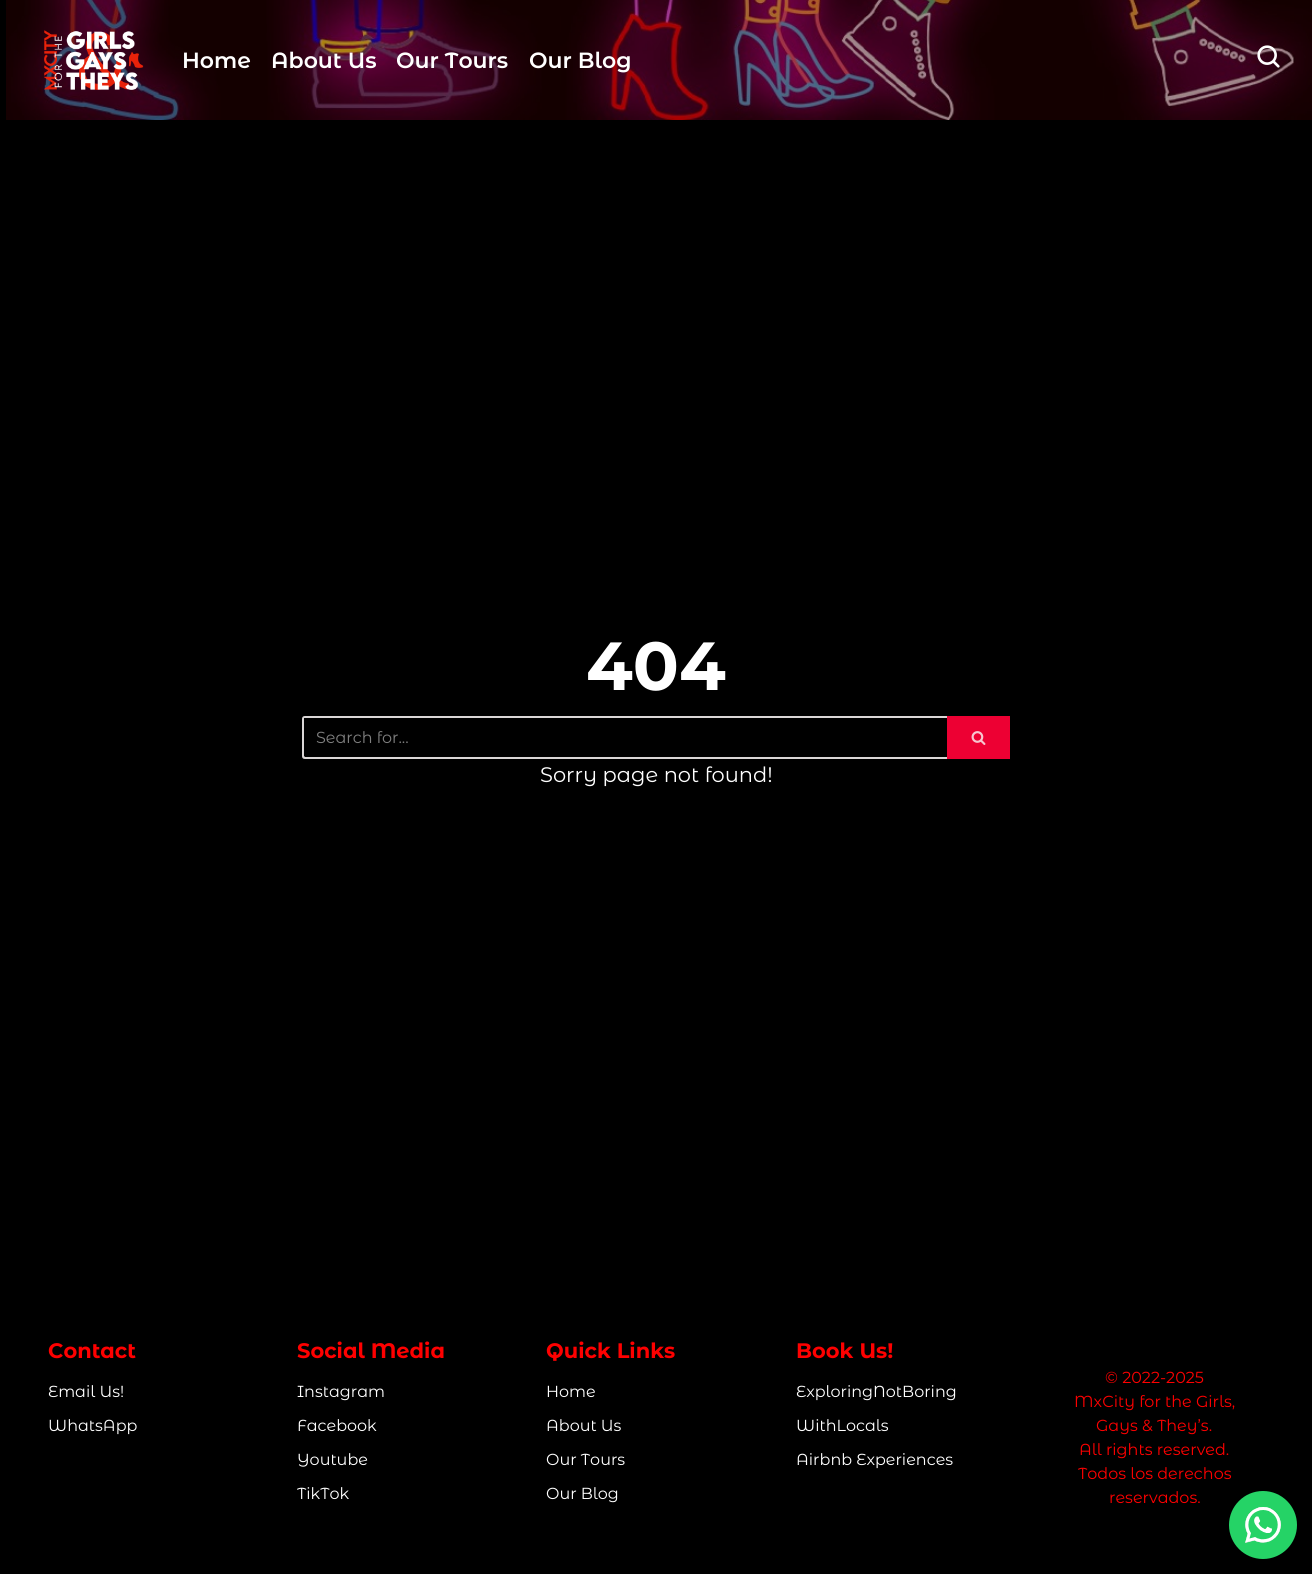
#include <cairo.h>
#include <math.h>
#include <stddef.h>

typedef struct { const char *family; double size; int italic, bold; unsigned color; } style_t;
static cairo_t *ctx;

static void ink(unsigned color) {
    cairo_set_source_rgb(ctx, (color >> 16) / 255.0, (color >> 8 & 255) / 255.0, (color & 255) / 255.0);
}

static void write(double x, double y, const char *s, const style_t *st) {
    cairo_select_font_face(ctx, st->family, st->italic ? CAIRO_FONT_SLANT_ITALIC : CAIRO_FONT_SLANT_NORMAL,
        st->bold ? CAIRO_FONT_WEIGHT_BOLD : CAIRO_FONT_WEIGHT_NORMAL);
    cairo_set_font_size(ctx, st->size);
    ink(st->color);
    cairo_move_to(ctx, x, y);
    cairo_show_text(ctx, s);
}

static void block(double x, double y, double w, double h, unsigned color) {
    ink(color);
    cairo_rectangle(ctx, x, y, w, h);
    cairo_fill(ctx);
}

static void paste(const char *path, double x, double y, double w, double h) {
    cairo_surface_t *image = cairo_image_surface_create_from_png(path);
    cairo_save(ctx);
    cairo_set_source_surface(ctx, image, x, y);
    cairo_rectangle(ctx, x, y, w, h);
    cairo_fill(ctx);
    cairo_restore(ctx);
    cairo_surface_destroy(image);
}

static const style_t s1 = {"Montserrat Alternates SemiBold", 22, 0, 0, 0xffffff};
static const style_t s2 = {"Montserrat Alternates", 68, 0, 1, 0xffffff};
static const style_t s3 = {"Montserrat Alternates", 16, 0, 0, 0x808080};
static const style_t s4 = {"Montserrat Alternates", 21, 0, 0, 0xffffff};
static const style_t s5 = {"Montserrat Alternates", 21, 0, 1, 0xfe0000};
static const style_t s6 = {"Montserrat Alternates", 16, 0, 0, 0xffffff};
static const style_t s7 = {"Montserrat Alternates", 16, 0, 0, 0xfe0000};

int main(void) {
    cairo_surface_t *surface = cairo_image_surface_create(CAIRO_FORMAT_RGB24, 1312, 1574);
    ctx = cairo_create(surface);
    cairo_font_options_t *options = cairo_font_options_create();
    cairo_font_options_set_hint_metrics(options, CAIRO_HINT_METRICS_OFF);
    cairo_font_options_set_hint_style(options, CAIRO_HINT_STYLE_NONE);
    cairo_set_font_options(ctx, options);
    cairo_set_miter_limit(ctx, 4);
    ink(0x000000);
    cairo_paint(ctx);
    paste("pic1.png", 6, 0, 1306, 120);
    paste("pic2.png", 44, 30, 100, 60);
    write(182, 68, "Home", &s1);
    write(271, 68, "About Us", &s1);
    write(396, 68, "Our Tours", &s1);
    write(529, 68, "Our Blog", &s1);
    paste("pic3.png", 1257, 45, 23, 23);
    write(586, 690, "404", &s2);
    ink(0xdad6d6);
    cairo_set_fill_rule(ctx, CAIRO_FILL_RULE_EVEN_ODD);
    cairo_new_path(ctx);
    cairo_move_to(ctx, 305, 716);
    cairo_line_to(ctx, 947, 716);
    cairo_line_to(ctx, 947, 759);
    cairo_line_to(ctx, 305, 759);
    cairo_curve_to(ctx, 303, 759, 302, 758, 302, 756);
    cairo_line_to(ctx, 302, 719);
    cairo_curve_to(ctx, 302, 717, 303, 716, 305, 716);
    cairo_close_path(ctx);
    cairo_move_to(ctx, 305, 718);
    cairo_line_to(ctx, 947, 718);
    cairo_line_to(ctx, 947, 757);
    cairo_line_to(ctx, 305, 757);
    cairo_line_to(ctx, 304, 756);
    cairo_line_to(ctx, 304, 718);
    cairo_close_path(ctx);
    cairo_fill(ctx);
    write(316, 743, "Search for...", &s3);
    block(947, 716, 63, 43, 0xed0033);
    paste("pic4.png", 971, 731, 15, 14);
    write(540, 782, "Sorry page not found!", &s4);
    write(48, 1358, "Contact", &s5);
    write(48, 1397, "Email Us!", &s6);
    write(48, 1431, "WhatsApp", &s6);
    write(297, 1358, "Social Media", &s5);
    write(297, 1397, "Instagram", &s6);
    write(297, 1431, "Facebook", &s6);
    write(297, 1465, "Youtube", &s6);
    write(297, 1499, "TikTok", &s6);
    write(546, 1358, "Quick Links", &s5);
    write(546, 1397, "Home", &s6);
    write(546, 1431, "About Us", &s6);
    write(546, 1465, "Our Tours", &s6);
    write(546, 1499, "Our Blog", &s6);
    write(796, 1358, "Book Us!", &s5);
    write(796, 1397, "ExploringNotBoring", &s6);
    write(796, 1431, "WithLocals", &s6);
    write(796, 1465, "Airbnb Experiences", &s6);
    write(1105, 1383, "© 2022-2025", &s7);
    write(1074, 1407, "MxCity for the Girls,", &s7);
    write(1096, 1431, "Gays & They’s.", &s7);
    write(1079, 1455, "All rights reserved.", &s7);
    write(1078, 1479, "Todos los derechos", &s7);
    write(1109, 1503, "reservados.", &s7);
    ink(0x25d366);
    cairo_new_path(ctx);
    cairo_arc(ctx, 1263, 1525, 34, 0, 2 * M_PI);
    cairo_fill(ctx);
    paste("pic5.png", 1245, 1507, 36, 36);
    cairo_surface_write_to_png(surface, "screenshot.png");
    cairo_font_options_destroy(options);
    cairo_destroy(ctx);
    cairo_surface_destroy(surface);
    return 0;
}
